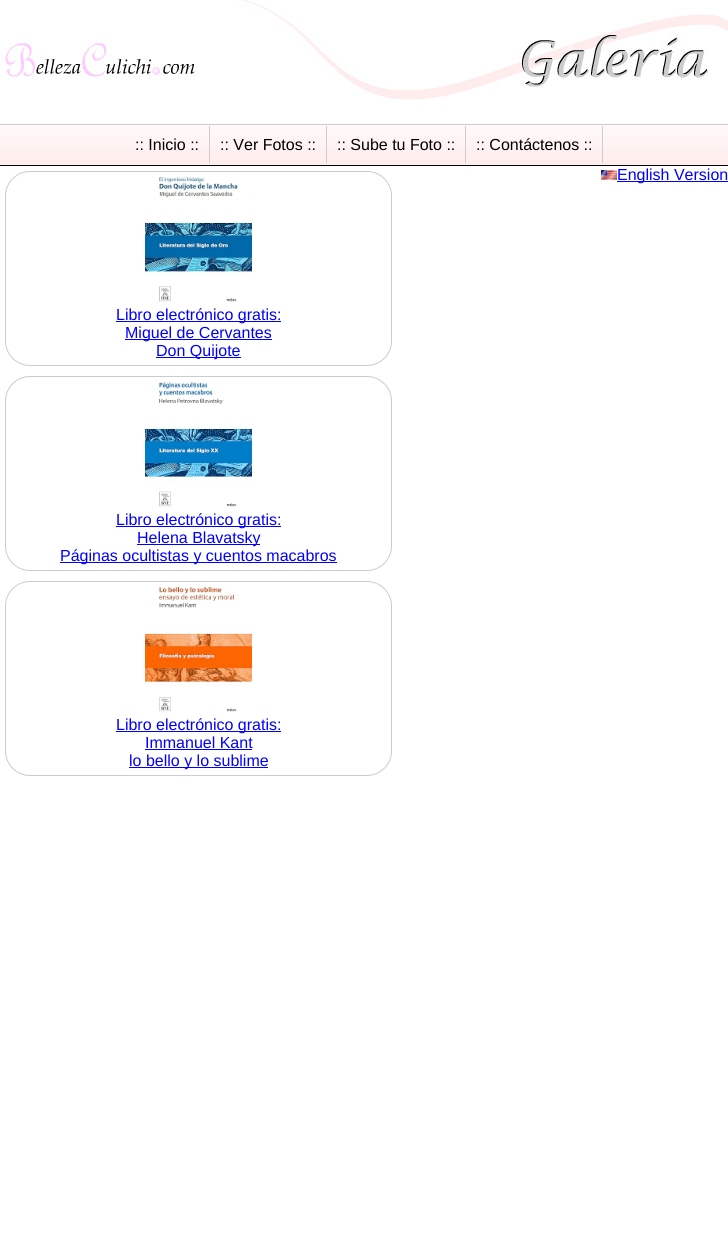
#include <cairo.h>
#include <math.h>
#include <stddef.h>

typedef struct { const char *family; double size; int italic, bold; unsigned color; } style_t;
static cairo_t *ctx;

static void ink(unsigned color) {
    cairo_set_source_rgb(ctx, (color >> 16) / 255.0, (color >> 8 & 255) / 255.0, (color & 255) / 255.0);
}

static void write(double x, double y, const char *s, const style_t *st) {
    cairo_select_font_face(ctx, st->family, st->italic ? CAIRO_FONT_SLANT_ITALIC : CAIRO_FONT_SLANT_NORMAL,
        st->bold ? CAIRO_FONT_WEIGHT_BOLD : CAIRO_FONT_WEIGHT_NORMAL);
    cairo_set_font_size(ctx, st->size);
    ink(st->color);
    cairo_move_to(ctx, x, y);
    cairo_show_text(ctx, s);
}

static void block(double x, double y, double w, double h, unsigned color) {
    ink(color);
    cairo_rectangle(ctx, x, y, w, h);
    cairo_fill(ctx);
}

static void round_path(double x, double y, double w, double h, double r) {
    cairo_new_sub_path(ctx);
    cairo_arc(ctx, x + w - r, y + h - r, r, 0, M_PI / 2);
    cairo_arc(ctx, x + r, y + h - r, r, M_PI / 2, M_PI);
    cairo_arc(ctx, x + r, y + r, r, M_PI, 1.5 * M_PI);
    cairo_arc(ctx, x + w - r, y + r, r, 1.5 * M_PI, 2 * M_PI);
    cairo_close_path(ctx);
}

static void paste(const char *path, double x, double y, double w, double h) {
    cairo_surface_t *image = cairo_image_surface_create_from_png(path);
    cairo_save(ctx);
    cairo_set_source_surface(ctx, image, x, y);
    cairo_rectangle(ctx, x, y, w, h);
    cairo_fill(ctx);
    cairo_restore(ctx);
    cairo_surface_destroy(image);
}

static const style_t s1 = {"Liberation Sans", 16, 0, 0, 0x000000};
static const style_t s2 = {"Liberation Sans", 16, 0, 0, 0x0000ff};

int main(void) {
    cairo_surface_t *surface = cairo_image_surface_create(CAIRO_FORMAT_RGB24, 728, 1246);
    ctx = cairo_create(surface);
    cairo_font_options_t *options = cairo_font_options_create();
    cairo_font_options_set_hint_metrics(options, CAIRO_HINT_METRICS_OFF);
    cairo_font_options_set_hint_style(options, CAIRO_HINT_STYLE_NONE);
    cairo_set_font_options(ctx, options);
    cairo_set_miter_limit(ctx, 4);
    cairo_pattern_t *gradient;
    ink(0xffffff);
    cairo_paint(ctx);
    paste("pic1.png", 0, 40, 199, 40);
    paste("pic2.png", 236, 0, 492, 102);
    gradient = cairo_pattern_create_linear(364, 125, 364, 165);
    cairo_pattern_add_color_stop_rgba(gradient, 0, 1, 0.976, 0.976, 1);
    cairo_pattern_add_color_stop_rgba(gradient, 1, 1, 0.925, 0.925, 1);
    cairo_set_source(ctx, gradient);
    cairo_pattern_destroy(gradient);
    cairo_rectangle(ctx, 0, 125, 728, 40);
    cairo_fill(ctx);
    block(0, 124, 728, 1, 0xcccccc);
    block(0, 165, 728, 1, 0x000000);
    write(135, 150, ":: Inicio ::", &s1);
    block(209, 126, 1, 37, 0xcccccc);
    write(220, 150, ":: Ver Fotos ::", &s1);
    block(326, 126, 1, 37, 0xcccccc);
    write(337, 150, ":: Sube tu Foto ::", &s1);
    block(465, 126, 1, 37, 0xcccccc);
    write(476, 150, ":: Contáctenos ::", &s1);
    block(602, 126, 1, 37, 0xcccccc);
    paste("pic3.png", 601, 170, 16, 10);
    block(617, 181, 111, 1, 0x0000ff);
    write(617, 180, "English Version", &s2);
    round_path(5.5, 171.5, 386, 194, 24.5);
    ink(0xcccccc);
    cairo_set_line_width(ctx, 1);
    cairo_stroke(ctx);
    paste("pic4.png", 145, 177, 107, 125);
    block(116, 321, 165, 1, 0x0000ff);
    write(116, 320, "Libro electrónico gratis:", &s2);
    block(125, 339, 147, 1, 0x0000ff);
    write(125, 338, "Miguel de Cervantes", &s2);
    block(156, 357, 85, 1, 0x0000ff);
    write(156, 356, "Don Quijote", &s2);
    round_path(5.5, 376.5, 386, 194, 24.5);
    ink(0xcccccc);
    cairo_stroke(ctx);
    paste("pic5.png", 145, 382, 107, 125);
    block(116, 526, 165, 1, 0x0000ff);
    write(116, 525, "Libro electrónico gratis:", &s2);
    block(137, 544, 123, 1, 0x0000ff);
    write(137, 543, "Helena Blavatsky", &s2);
    block(60, 562, 277, 1, 0x0000ff);
    write(60, 561, "Páginas ocultistas y cuentos macabros", &s2);
    round_path(5.5, 581.5, 386, 194, 24.5);
    ink(0xcccccc);
    cairo_stroke(ctx);
    paste("pic6.png", 145, 587, 107, 125);
    block(116, 731, 165, 1, 0x0000ff);
    write(116, 730, "Libro electrónico gratis:", &s2);
    write(145, 748, "Immanuel Kant", &s2);
    block(145, 749, 107, 1, 0x0000ff);
    block(129, 767, 139, 1, 0x0000ff);
    write(129, 766, "lo bello y lo sublime", &s2);
    cairo_surface_write_to_png(surface, "screenshot.png");
    cairo_font_options_destroy(options);
    cairo_destroy(ctx);
    cairo_surface_destroy(surface);
    return 0;
}
